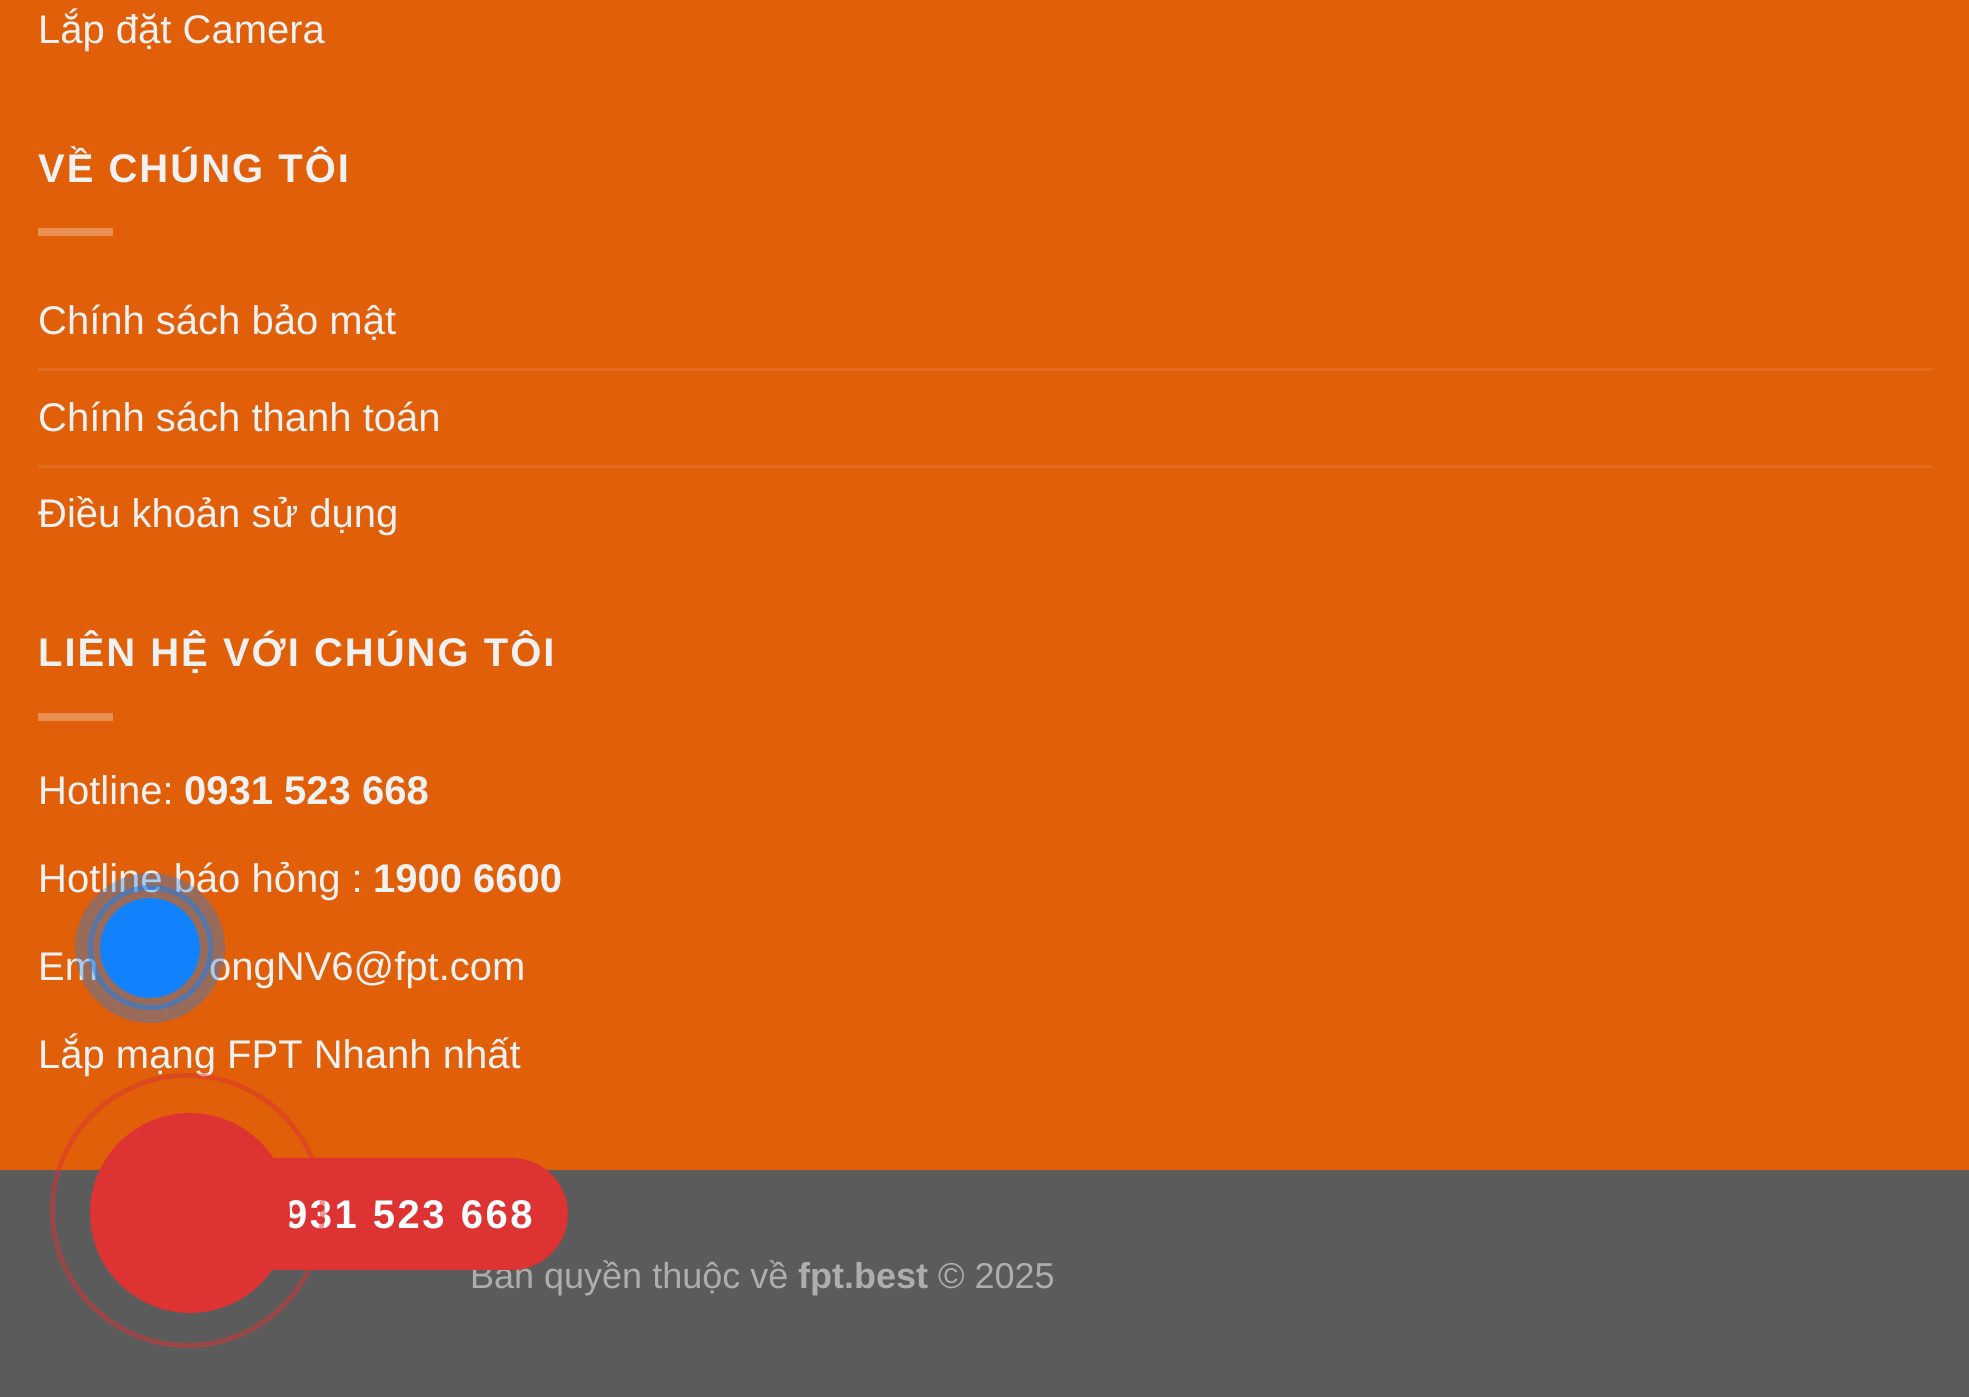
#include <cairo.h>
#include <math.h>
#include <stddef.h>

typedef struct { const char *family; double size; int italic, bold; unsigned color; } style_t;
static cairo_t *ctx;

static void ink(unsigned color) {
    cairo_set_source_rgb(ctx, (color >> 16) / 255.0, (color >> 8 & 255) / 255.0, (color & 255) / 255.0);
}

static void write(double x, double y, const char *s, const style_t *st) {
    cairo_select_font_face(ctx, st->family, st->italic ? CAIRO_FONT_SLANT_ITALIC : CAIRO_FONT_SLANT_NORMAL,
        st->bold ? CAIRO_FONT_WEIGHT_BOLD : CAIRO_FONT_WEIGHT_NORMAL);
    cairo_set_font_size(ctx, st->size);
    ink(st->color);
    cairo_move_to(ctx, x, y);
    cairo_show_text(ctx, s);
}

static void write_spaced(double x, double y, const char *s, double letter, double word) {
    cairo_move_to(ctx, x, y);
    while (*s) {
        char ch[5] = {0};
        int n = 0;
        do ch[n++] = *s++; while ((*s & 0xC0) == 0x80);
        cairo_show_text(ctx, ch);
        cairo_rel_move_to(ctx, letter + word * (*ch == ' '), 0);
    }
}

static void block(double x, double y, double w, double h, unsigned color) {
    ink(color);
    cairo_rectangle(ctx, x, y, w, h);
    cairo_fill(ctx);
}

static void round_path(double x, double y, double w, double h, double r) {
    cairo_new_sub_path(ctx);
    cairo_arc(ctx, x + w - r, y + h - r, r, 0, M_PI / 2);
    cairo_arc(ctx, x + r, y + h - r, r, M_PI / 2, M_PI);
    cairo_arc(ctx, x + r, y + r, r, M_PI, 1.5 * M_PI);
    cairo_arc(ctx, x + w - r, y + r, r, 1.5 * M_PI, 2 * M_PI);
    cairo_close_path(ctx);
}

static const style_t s1 = {"Liberation Sans", 40, 0, 0, 0xf1f1f1};
static const style_t s2 = {"Liberation Sans", 40, 0, 1, 0xf1f1f1};
static const style_t s3 = {"Liberation Sans", 36, 0, 0, 0xadadad};
static const style_t s4 = {"Liberation Sans", 36, 0, 1, 0xadadad};

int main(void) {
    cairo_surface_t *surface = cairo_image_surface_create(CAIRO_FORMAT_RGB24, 1969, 1397);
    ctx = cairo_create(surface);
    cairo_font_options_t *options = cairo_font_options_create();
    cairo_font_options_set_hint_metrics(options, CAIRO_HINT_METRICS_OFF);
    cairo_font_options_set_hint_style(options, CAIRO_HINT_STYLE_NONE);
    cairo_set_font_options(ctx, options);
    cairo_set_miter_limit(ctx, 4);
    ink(0xe05f08);
    cairo_paint(ctx);
    write(38, 43, "Lắp đặt Camera", &s1);
    cairo_select_font_face(ctx, "Liberation Sans", CAIRO_FONT_SLANT_NORMAL, CAIRO_FONT_WEIGHT_BOLD);
    write_spaced(38, 182, "VỀ CHÚNG TÔI", 2, 0);
    block(38, 228, 75, 8, 0xe98f52);
    write(38, 334, "Chính sách bảo mật", &s1);
    block(38, 368, 1895, 3, 0xe26c1c);
    write(38, 431, "Chính sách thanh toán", &s1);
    block(38, 465, 1895, 3, 0xe26c1c);
    write(38, 527, "Điều khoản sử dụng", &s1);
    cairo_select_font_face(ctx, "Liberation Sans", CAIRO_FONT_SLANT_NORMAL, CAIRO_FONT_WEIGHT_BOLD);
    write_spaced(38, 666, "LIÊN HỆ VỚI CHÚNG TÔI", 2, 0);
    block(38, 713, 75, 8, 0xe98f52);
    write(38, 804, "Hotline:", &s1);
    write(184, 804, "0931 523 668", &s2);
    write(38, 892, "Hotline báo hỏng :", &s1);
    write(373, 892, "1900 6600", &s2);
    write(38, 980, "Em", &s1);
    write(209, 980, "ongNV6@fpt.com", &s1);
    write(38, 1068, "Lắp mạng FPT Nhanh nhất", &s1);
    block(0, 1170, 1969, 227, 0x5b5b5b);
    write(470, 1288, "Bản quyền thuộc về", &s3);
    write(798, 1288, "fpt.best", &s4);
    write(938, 1288, "© 2025", &s3);
    cairo_new_path(ctx);
    cairo_arc(ctx, 150.5, 947.5, 60, 0, 2 * M_PI);
    cairo_set_source_rgba(ctx, 0.067, 0.51, 0.988, 0.5);
    cairo_set_line_width(ctx, 5);
    cairo_stroke(ctx);
    cairo_set_source_rgba(ctx, 0.067, 0.51, 0.988, 0.34);
    cairo_arc(ctx, 150, 948, 75, 0, 2 * M_PI);
    cairo_fill(ctx);
    ink(0x1182fc);
    cairo_arc(ctx, 150, 948, 50, 0, 2 * M_PI);
    cairo_fill(ctx);
    ink(0xdd3333);
    round_path(155, 1158, 413, 112, 56);
    cairo_fill(ctx);
    cairo_select_font_face(ctx, "Liberation Sans", CAIRO_FONT_SLANT_NORMAL, CAIRO_FONT_WEIGHT_BOLD);
    cairo_set_font_size(ctx, 40);
    ink(0xffffff);
    write_spaced(285, 1228, "931 523 668", 2.5, 0);
    cairo_new_path(ctx);
    cairo_arc(ctx, 187.5, 1210.5, 135, 0, 2 * M_PI);
    cairo_set_source_rgba(ctx, 0.867, 0.2, 0.2, 0.5);
    cairo_stroke(ctx);
    ink(0xdd3333);
    cairo_arc(ctx, 190, 1213, 100, 0, 2 * M_PI);
    cairo_fill(ctx);
    cairo_surface_write_to_png(surface, "screenshot.png");
    cairo_font_options_destroy(options);
    cairo_destroy(ctx);
    cairo_surface_destroy(surface);
    return 0;
}
